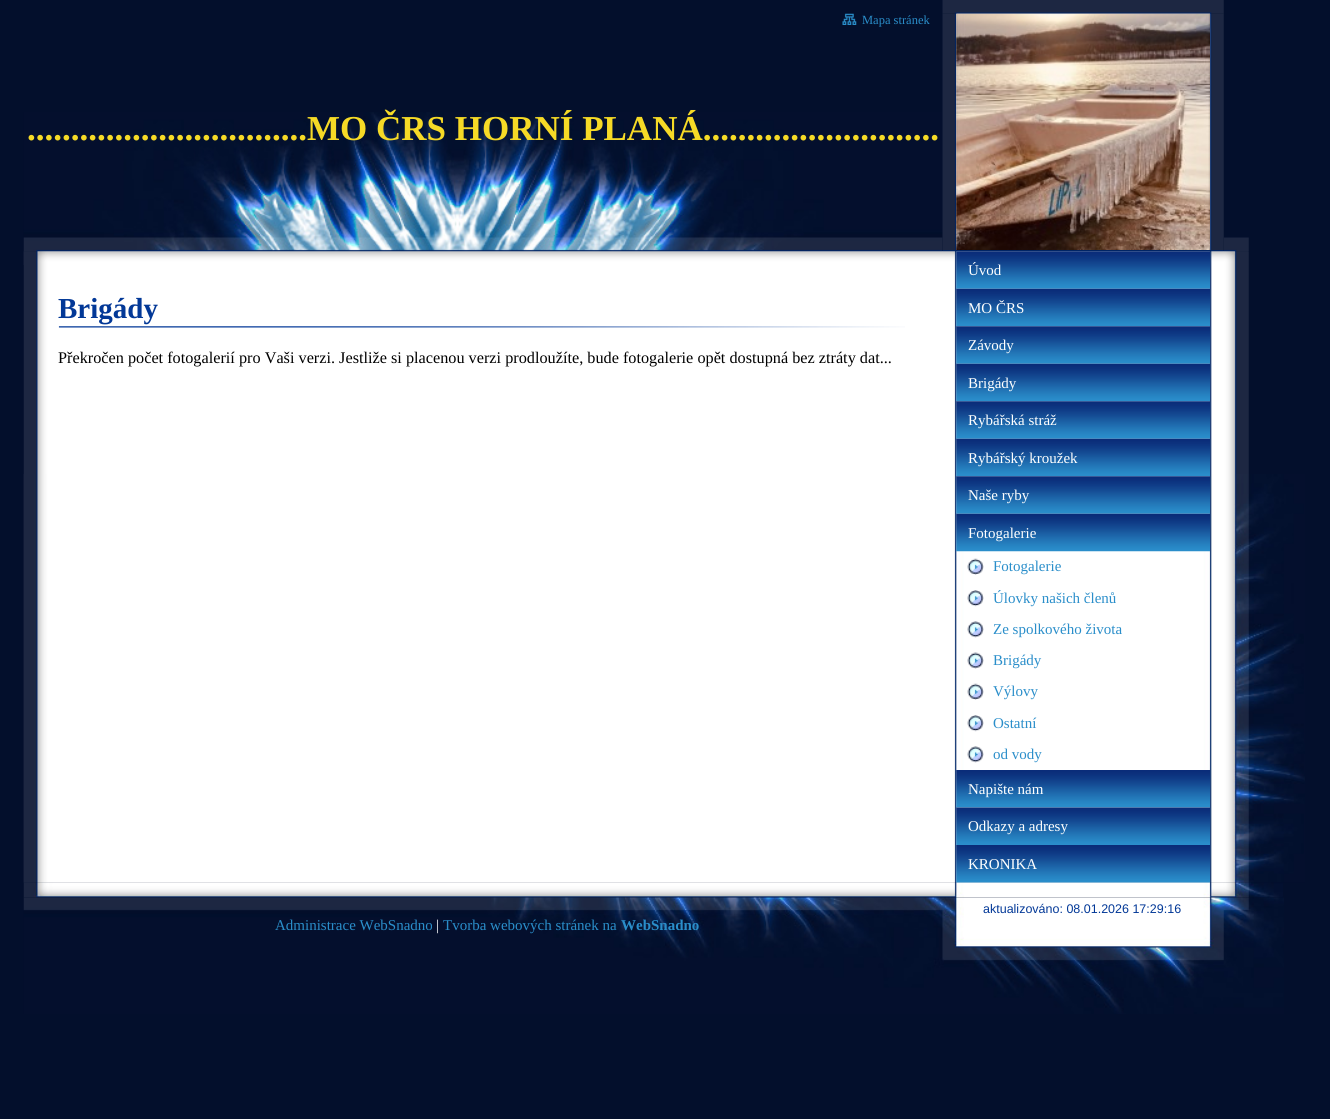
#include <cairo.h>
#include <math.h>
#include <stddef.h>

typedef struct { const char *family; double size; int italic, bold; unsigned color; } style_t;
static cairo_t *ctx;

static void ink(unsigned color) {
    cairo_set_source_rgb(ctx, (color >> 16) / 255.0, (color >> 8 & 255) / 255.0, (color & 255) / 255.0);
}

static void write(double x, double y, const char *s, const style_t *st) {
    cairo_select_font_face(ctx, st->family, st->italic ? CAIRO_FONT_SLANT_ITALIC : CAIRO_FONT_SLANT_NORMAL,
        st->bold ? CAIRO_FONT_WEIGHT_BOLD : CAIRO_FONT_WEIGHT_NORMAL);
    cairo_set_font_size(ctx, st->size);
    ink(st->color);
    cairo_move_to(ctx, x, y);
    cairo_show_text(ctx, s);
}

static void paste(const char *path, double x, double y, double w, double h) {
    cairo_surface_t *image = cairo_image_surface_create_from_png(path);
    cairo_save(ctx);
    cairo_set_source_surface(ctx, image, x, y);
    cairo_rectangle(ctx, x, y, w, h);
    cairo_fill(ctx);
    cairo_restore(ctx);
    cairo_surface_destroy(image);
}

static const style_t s1 = {"Liberation Serif", 12.5, 0, 0, 0x2a8eca};
static const style_t s2 = {"Liberation Serif", 35, 0, 1, 0xf6da26};
static const style_t s3 = {"Liberation Serif", 29, 0, 1, 0x023897};
static const style_t s4 = {"Liberation Serif", 16.25, 0, 0, 0x000000};
static const style_t s5 = {"Liberation Serif", 15, 0, 0, 0xffffff};
static const style_t s6 = {"Liberation Serif", 15, 0, 0, 0x2a8eca};
static const style_t s7 = {"Liberation Sans", 12.5, 0, 0, 0x023897};
static const style_t s8 = {"Liberation Serif", 15, 0, 1, 0x2a8eca};

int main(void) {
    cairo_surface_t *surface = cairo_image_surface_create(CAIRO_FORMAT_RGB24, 1330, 1119);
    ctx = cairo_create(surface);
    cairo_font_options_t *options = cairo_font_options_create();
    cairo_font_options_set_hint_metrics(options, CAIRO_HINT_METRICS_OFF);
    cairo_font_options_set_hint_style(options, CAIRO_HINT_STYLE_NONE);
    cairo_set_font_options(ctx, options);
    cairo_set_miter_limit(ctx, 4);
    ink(0x030f2c);
    cairo_paint(ctx);
    paste("pic8.png", 23, 251, 1226, 632);
    paste("pic10.png", 23, 251, 1225, 14);
    paste("pic1.png", 23, 112, 920, 140);
    paste("pic2.png", 842, 13, 15, 12);
    write(862, 24, "Mapa stránek", &s1);
    write(27, 140, "................................MO ČRS HORNÍ PLANÁ...........................", &s2);
    paste("pic7.png", 1223, 237, 26, 15);
    paste("pic12.png", 956, 251, 254, 38);
    paste("pic3.png", 942, 250, 282, 2);
    paste("pic4.png", 942, 0, 282, 14);
    paste("pic5.png", 942, 13, 282, 237);
    paste("pic6.png", 956, 13, 254, 237);
    paste("pic9.png", 23, 474, 1282, 409);
    paste("pic11.png", 58, 326, 847, 2);
    write(58, 318, "Brigády", &s3);
    write(58, 363, "Překročen počet fotogalerií pro Vaši verzi. Jestliže si placenou verzi prodloužíte, bude fotogalerie opět dostupná bez ztráty dat...", &s4);
    write(968, 275, "Úvod", &s5);
    paste("pic13.png", 956, 288, 254, 39);
    write(968, 313, "MO ČRS", &s5);
    paste("pic14.png", 956, 326, 254, 38);
    write(968, 350, "Závody", &s5);
    paste("pic15.png", 956, 363, 254, 39);
    write(968, 388, "Brigády", &s5);
    paste("pic14.png", 956, 401, 254, 38);
    write(968, 425, "Rybářská stráž", &s5);
    paste("pic16.png", 956, 438, 254, 39);
    write(968, 463, "Rybářský kroužek", &s5);
    paste("pic17.png", 956, 476, 254, 38);
    write(968, 500, "Naše ryby", &s5);
    paste("pic18.png", 956, 513, 254, 39);
    write(968, 538, "Fotogalerie", &s5);
    paste("pic19.png", 967, 558, 17, 17);
    write(993, 571, "Fotogalerie", &s6);
    paste("pic20.png", 967, 590, 17, 17);
    write(993, 603, "Úlovky našich členů", &s6);
    paste("pic21.png", 967, 621, 17, 17);
    write(993, 634, "Ze spolkového života", &s6);
    paste("pic22.png", 967, 652, 17, 17);
    write(993, 665, "Brigády", &s6);
    paste("pic19.png", 967, 683, 17, 17);
    write(993, 696, "Výlovy", &s6);
    paste("pic20.png", 967, 715, 17, 17);
    write(993, 728, "Ostatní", &s6);
    paste("pic21.png", 967, 746, 17, 17);
    write(993, 759, "od vody", &s6);
    paste("pic23.png", 956, 770, 254, 38);
    write(968, 794, "Napište nám", &s5);
    paste("pic24.png", 956, 807, 254, 38);
    write(968, 831, "Odkazy a adresy", &s5);
    paste("pic26.png", 23, 882, 1260, 16);
    paste("pic25.png", 956, 845, 254, 38);
    write(968, 869, "KRONIKA", &s5);
    paste("pic27.png", 23, 897, 1261, 117);
    write(983, 913, "aktualizováno: 08.01.2026 17:29:16", &s7);
    write(275, 930, "Administrace WebSnadno", &s6);
    write(436, 930, "|", &s5);
    write(443, 930, "Tvorba webových stránek na", &s6);
    write(621, 930, "WebSnadno", &s8);
    cairo_surface_write_to_png(surface, "screenshot.png");
    cairo_font_options_destroy(options);
    cairo_destroy(ctx);
    cairo_surface_destroy(surface);
    return 0;
}
